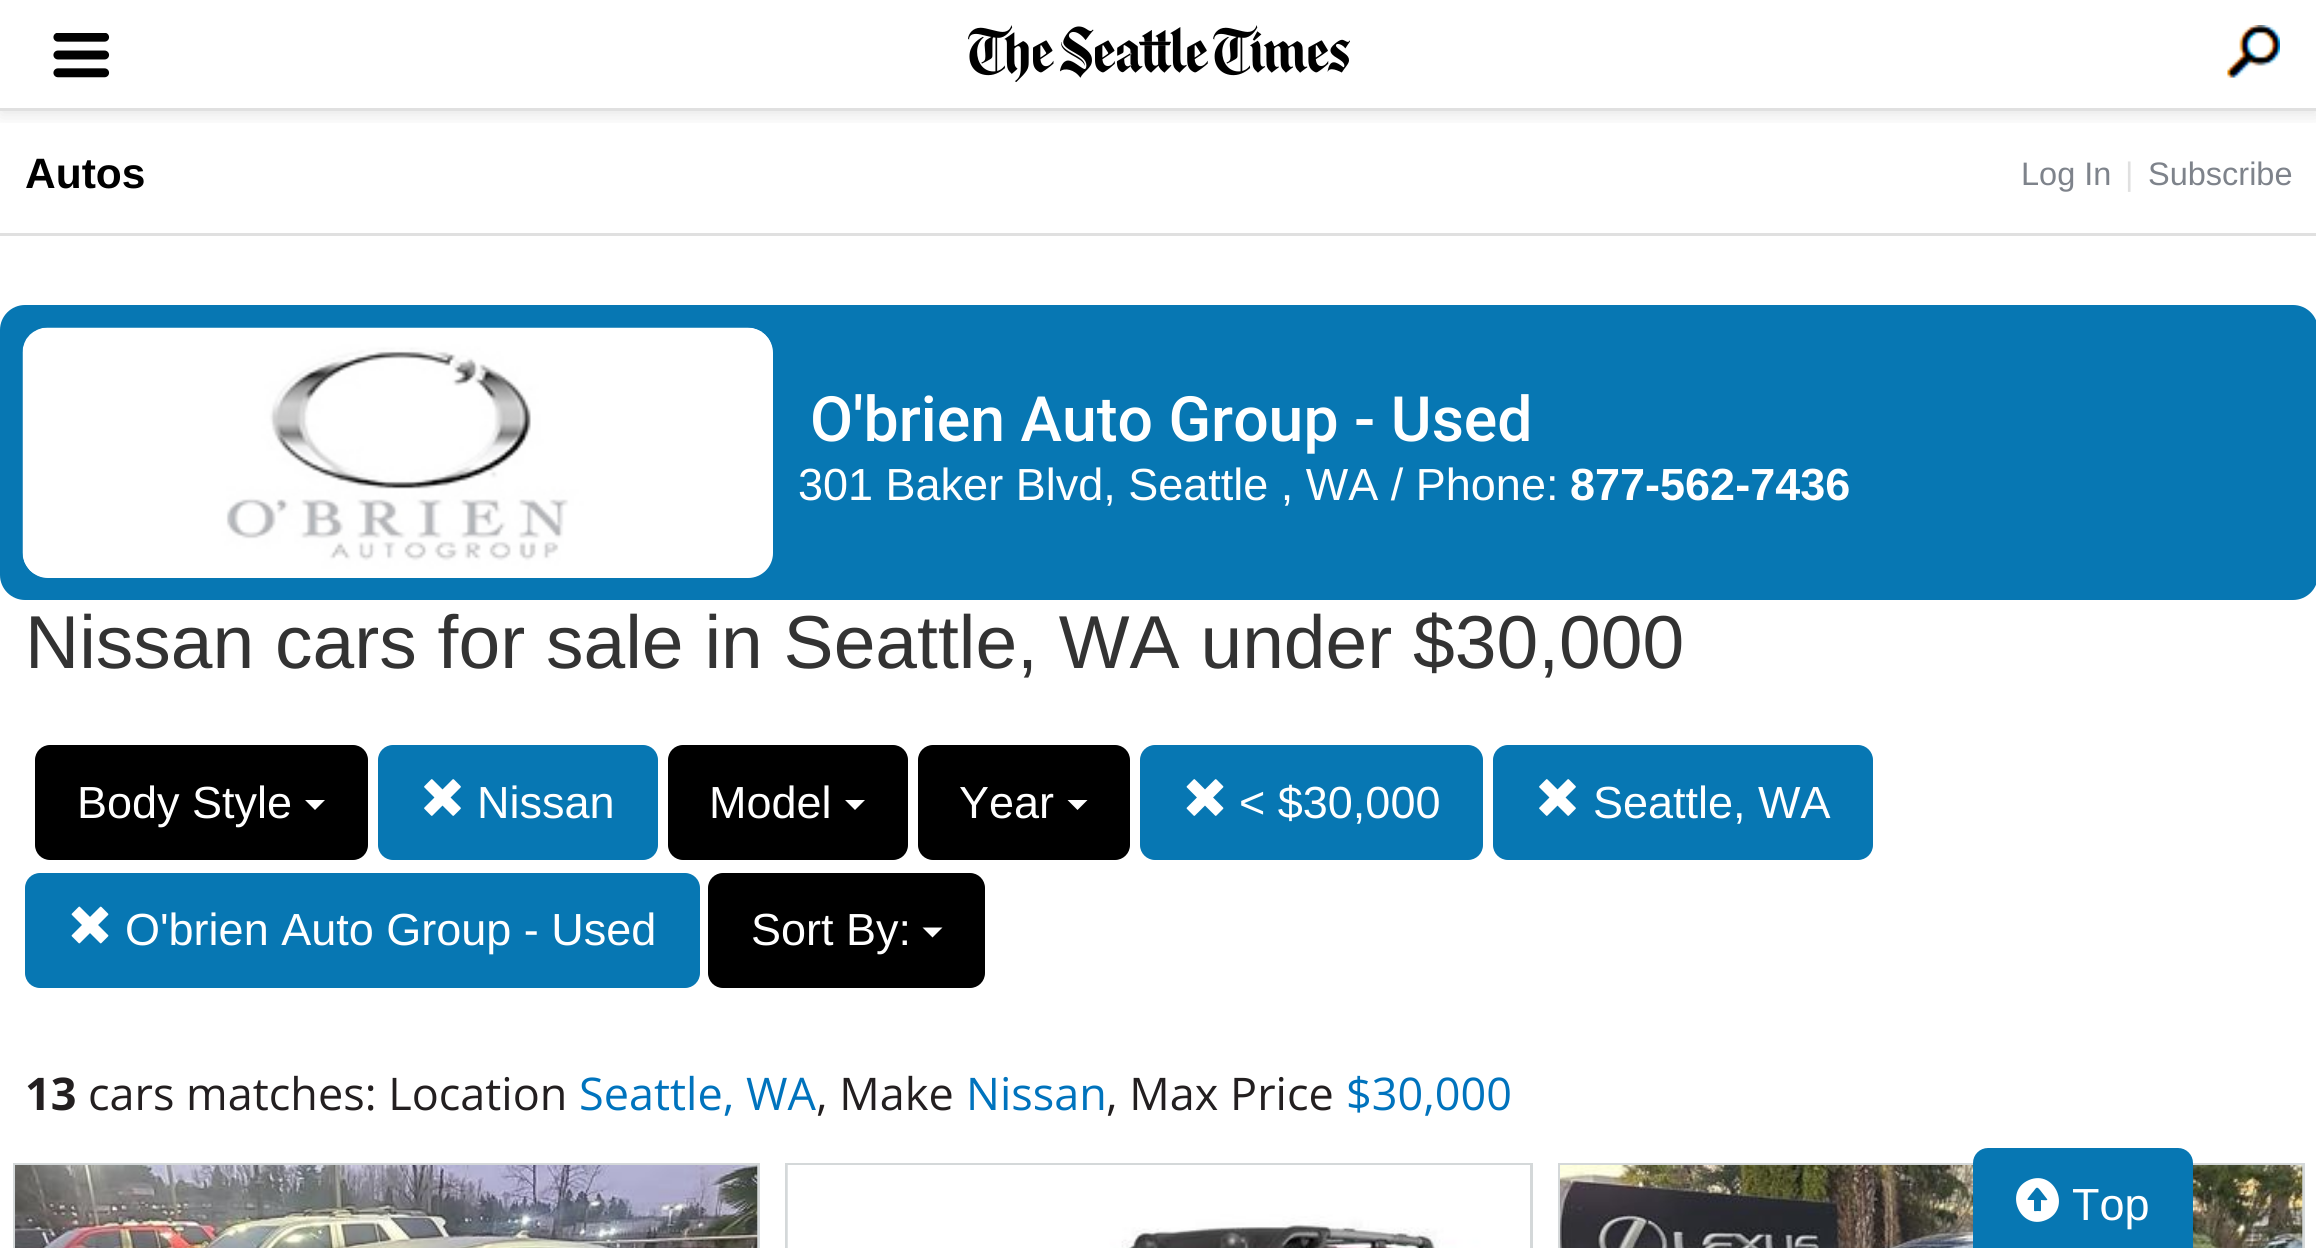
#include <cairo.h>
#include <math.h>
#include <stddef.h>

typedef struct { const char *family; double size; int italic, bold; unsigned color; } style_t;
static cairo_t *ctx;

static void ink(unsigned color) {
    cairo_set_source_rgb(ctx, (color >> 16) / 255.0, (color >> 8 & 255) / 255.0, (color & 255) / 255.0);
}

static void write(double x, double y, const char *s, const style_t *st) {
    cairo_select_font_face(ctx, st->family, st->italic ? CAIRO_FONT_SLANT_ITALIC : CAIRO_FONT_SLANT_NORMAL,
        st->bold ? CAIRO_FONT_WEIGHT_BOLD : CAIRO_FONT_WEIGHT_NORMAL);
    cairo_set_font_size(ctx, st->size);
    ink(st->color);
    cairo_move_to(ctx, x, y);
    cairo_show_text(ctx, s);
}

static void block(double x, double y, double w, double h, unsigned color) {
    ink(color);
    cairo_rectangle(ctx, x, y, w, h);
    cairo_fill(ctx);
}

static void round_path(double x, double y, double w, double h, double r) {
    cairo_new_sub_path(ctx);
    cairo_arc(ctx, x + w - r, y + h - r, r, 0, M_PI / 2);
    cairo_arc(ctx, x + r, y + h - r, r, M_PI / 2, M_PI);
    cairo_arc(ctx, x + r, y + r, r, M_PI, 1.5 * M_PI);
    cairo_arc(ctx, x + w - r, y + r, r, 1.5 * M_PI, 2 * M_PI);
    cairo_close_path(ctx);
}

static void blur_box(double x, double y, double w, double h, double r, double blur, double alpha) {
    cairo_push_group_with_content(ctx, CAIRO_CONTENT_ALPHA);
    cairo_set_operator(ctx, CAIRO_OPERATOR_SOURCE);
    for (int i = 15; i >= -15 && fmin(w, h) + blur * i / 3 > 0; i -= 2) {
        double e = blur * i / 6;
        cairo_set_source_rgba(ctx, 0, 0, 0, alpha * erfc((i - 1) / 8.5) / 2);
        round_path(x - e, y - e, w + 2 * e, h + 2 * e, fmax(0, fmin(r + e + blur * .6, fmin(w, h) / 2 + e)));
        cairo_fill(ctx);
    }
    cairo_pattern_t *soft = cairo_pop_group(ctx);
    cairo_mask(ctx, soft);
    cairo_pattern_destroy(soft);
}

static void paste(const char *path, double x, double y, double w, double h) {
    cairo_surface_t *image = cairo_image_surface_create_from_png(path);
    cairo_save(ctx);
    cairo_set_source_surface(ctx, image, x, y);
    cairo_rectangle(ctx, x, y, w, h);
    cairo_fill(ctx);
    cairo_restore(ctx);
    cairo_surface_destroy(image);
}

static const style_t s1 = {"Liberation Sans", 42.5, 0, 1, 0x000000};
static const style_t s2 = {"Liberation Sans", 32.5, 0, 0, 0x7e838b};
static const style_t s3 = {"Liberation Sans", 32.5, 0, 0, 0xe0e0e0};
static const style_t s4 = {"Roboto Medium", 62.5, 0, 0, 0xffffff};
static const style_t s5 = {"Liberation Sans", 45, 0, 0, 0xffffff};
static const style_t s6 = {"Liberation Sans", 45, 0, 1, 0xffffff};
static const style_t s7 = {"Liberation Sans", 75, 0, 0, 0x333333};
static const style_t s8 = {"Open Sans", 45, 0, 1, 0x231f20};
static const style_t s9 = {"Open Sans", 45, 0, 0, 0x231f20};
static const style_t s10 = {"Open Sans", 45, 0, 0, 0x0073bd};

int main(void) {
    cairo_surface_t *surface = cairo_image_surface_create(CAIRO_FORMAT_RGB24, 2316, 1248);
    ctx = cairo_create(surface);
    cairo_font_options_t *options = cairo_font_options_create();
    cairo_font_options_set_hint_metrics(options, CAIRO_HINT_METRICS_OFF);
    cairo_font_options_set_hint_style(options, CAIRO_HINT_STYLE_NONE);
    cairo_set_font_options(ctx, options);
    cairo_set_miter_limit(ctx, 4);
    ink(0xffffff);
    cairo_paint(ctx);
    cairo_save(ctx);
    cairo_rectangle(ctx, 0, 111, 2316, 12);
    cairo_clip(ctx);
    ink(0x000000);
    blur_box(0, 5, 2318, 110, 0, 9, 0.1);
    cairo_restore(ctx);
    block(0, 108, 2316, 3, 0xe0e0e0);
    paste("pic1.png", 53, 33, 57, 45);
    paste("pic2.png", 968, 25, 382, 57);
    paste("pic3.png", 2227, 25, 53, 53);
    block(0, 233, 2316, 3, 0xe0e0e0);
    write(25, 188, "Autos", &s1);
    write(2021, 185, "Log In", &s2);
    write(2125, 185, "|", &s3);
    write(2148, 185, "Subscribe", &s2);
    ink(0x0777b3);
    round_path(0, 305, 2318, 295, 25);
    cairo_fill(ctx);
    ink(0xffffff);
    round_path(23, 328, 750, 250, 25);
    cairo_fill(ctx);
    paste("pic4.png", 22, 327, 751, 251);
    write(810, 441, "O'brien Auto Group - Used", &s4);
    write(798, 500, "301 Baker Blvd, Seattle , WA / Phone:", &s5);
    write(1570, 500, "877-562-7436", &s6);
    write(25, 668, "Nissan cars for sale in Seattle, WA under $30,000", &s7);
    ink(0x000000);
    round_path(35, 745, 333, 115, 15);
    cairo_fill(ctx);
    write(77, 818, "Body Style", &s5);
    cairo_new_path(ctx);
    cairo_move_to(ctx, 305, 800);
    cairo_line_to(ctx, 325, 800);
    cairo_line_to(ctx, 315, 810);
    cairo_close_path(ctx);
    cairo_fill(ctx);
    ink(0x0777b3);
    round_path(378, 745, 280, 115, 15);
    cairo_fill(ctx);
    paste("pic5.png", 424, 779, 37, 37);
    write(477, 818, "Nissan", &s5);
    ink(0x000000);
    round_path(668, 745, 240, 115, 15);
    cairo_fill(ctx);
    write(709, 818, "Model", &s5);
    cairo_new_path(ctx);
    cairo_move_to(ctx, 845, 800);
    cairo_line_to(ctx, 865, 800);
    cairo_line_to(ctx, 855, 810);
    cairo_close_path(ctx);
    cairo_fill(ctx);
    ink(0x000000);
    round_path(918, 745, 212, 115, 15);
    cairo_fill(ctx);
    write(959, 818, "Year", &s5);
    cairo_new_path(ctx);
    cairo_move_to(ctx, 1067.5, 800);
    cairo_line_to(ctx, 1087.5, 800);
    cairo_line_to(ctx, 1077.5, 810);
    cairo_close_path(ctx);
    cairo_fill(ctx);
    ink(0x0777b3);
    round_path(1140, 745, 343, 115, 15);
    cairo_fill(ctx);
    paste("pic6.png", 1186, 779, 38, 37);
    write(1239, 818, "< $30,000", &s5);
    ink(0x0777b3);
    round_path(1493, 745, 380, 115, 15);
    cairo_fill(ctx);
    paste("pic5.png", 1539, 779, 37, 37);
    write(1593, 818, "Seattle, WA", &s5);
    ink(0x0777b3);
    round_path(25, 873, 675, 115, 15);
    cairo_fill(ctx);
    paste("pic7.png", 71, 906, 38, 38);
    write(125, 945, "O'brien Auto Group - Used", &s5);
    ink(0x000000);
    round_path(708, 873, 277, 115, 15);
    cairo_fill(ctx);
    write(751, 945, "Sort By:", &s5);
    cairo_new_path(ctx);
    cairo_move_to(ctx, 922.5, 927.5);
    cairo_line_to(ctx, 942.5, 927.5);
    cairo_line_to(ctx, 932.5, 937.5);
    cairo_close_path(ctx);
    cairo_fill(ctx);
    write(25, 1110, "13", &s8);
    write(88, 1110, "cars matches: Location", &s9);
    write(579, 1110, "Seattle, WA", &s10);
    write(816, 1110, ", Make", &s9);
    write(966, 1110, "Nissan", &s10);
    write(1106, 1110, ", Max Price", &s9);
    write(1346, 1110, "$30,000", &s10);
    cairo_rectangle(ctx, 14.5, 1164.5, 744, 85);
    ink(0xd4d8d9);
    cairo_set_line_width(ctx, 3);
    cairo_stroke(ctx);
    paste("pic8.png", 15, 1165, 743, 83);
    cairo_rectangle(ctx, 786.5, 1164.5, 745, 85);
    cairo_stroke(ctx);
    paste("pic9.png", 787, 1165, 743, 83);
    cairo_rectangle(ctx, 1559.5, 1164.5, 744, 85);
    cairo_stroke(ctx);
    paste("pic10.png", 1560, 1165, 743, 83);
    ink(0x0777b3);
    round_path(1974.5, 1149.5, 217, 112, 13.5);
    cairo_fill_preserve(ctx);
    cairo_stroke(ctx);
    ink(0xffffff);
    cairo_new_path(ctx);
    cairo_move_to(ctx, 2029, 1180);
    cairo_curve_to(ctx, 2055, 1169, 2072, 1209, 2046, 1220);
    cairo_curve_to(ctx, 2020, 1231, 2003, 1191, 2029, 1180);
    cairo_close_path(ctx);
    cairo_move_to(ctx, 2047, 1199);
    cairo_line_to(ctx, 2040, 1190);
    cairo_curve_to(ctx, 2036, 1185, 2036, 1189, 2032, 1193);
    cairo_curve_to(ctx, 2026, 1201, 2025, 1200, 2034, 1200);
    cairo_line_to(ctx, 2034, 1209);
    cairo_curve_to(ctx, 2034, 1212, 2034, 1211, 2038, 1211);
    cairo_curve_to(ctx, 2041, 1211, 2041, 1212, 2041, 1209);
    cairo_line_to(ctx, 2041, 1200);
    cairo_curve_to(ctx, 2042, 1200, 2049, 1201, 2047, 1199);
    cairo_close_path(ctx);
    cairo_fill(ctx);
    write(2072, 1220, "Top", &s5);
    cairo_surface_write_to_png(surface, "screenshot.png");
    cairo_font_options_destroy(options);
    cairo_destroy(ctx);
    cairo_surface_destroy(surface);
    return 0;
}
